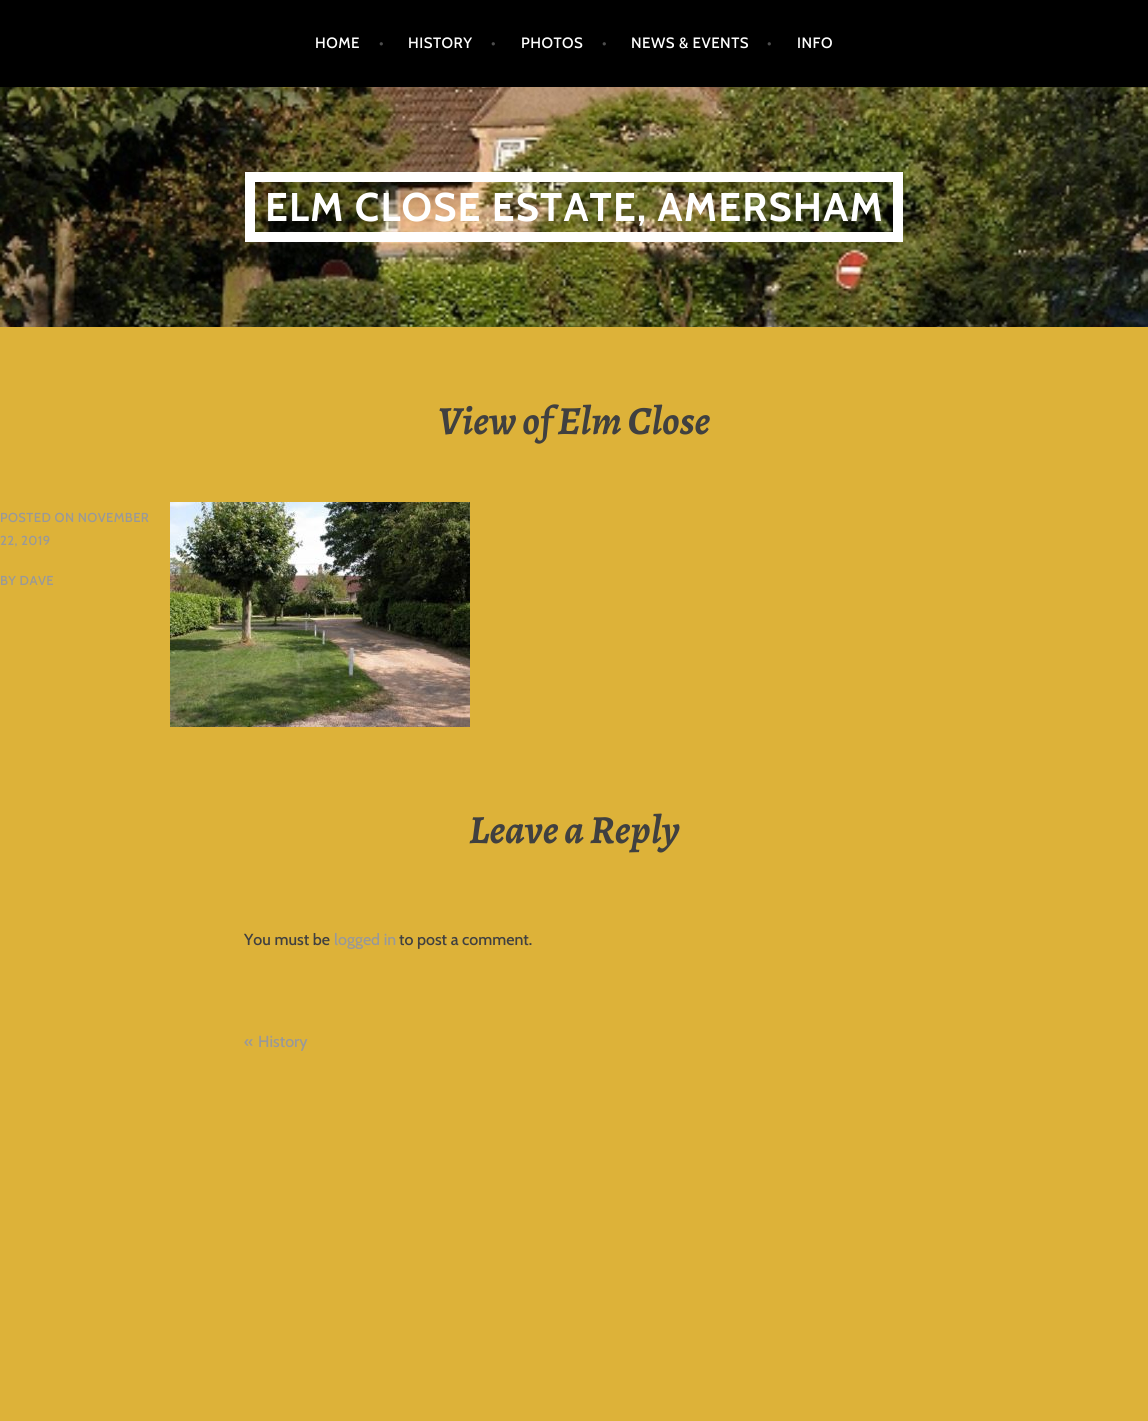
#include <cairo.h>
#include <math.h>
#include <stddef.h>

typedef struct { const char *family; double size; int italic, bold; unsigned color; } style_t;
static cairo_t *ctx;

static void ink(unsigned color) {
    cairo_set_source_rgb(ctx, (color >> 16) / 255.0, (color >> 8 & 255) / 255.0, (color & 255) / 255.0);
}

static void write(double x, double y, const char *s, const style_t *st) {
    cairo_select_font_face(ctx, st->family, st->italic ? CAIRO_FONT_SLANT_ITALIC : CAIRO_FONT_SLANT_NORMAL,
        st->bold ? CAIRO_FONT_WEIGHT_BOLD : CAIRO_FONT_WEIGHT_NORMAL);
    cairo_set_font_size(ctx, st->size);
    ink(st->color);
    cairo_move_to(ctx, x, y);
    cairo_show_text(ctx, s);
}

static void write_spaced(double x, double y, const char *s, double letter, double word) {
    cairo_move_to(ctx, x, y);
    while (*s) {
        char ch[5] = {0};
        int n = 0;
        do ch[n++] = *s++; while ((*s & 0xC0) == 0x80);
        cairo_show_text(ctx, ch);
        cairo_rel_move_to(ctx, letter + word * (*ch == ' '), 0);
    }
}

static void block(double x, double y, double w, double h, unsigned color) {
    ink(color);
    cairo_rectangle(ctx, x, y, w, h);
    cairo_fill(ctx);
}

static void paste(const char *path, double x, double y, double w, double h) {
    cairo_surface_t *image = cairo_image_surface_create_from_png(path);
    cairo_save(ctx);
    cairo_set_source_surface(ctx, image, x, y);
    cairo_rectangle(ctx, x, y, w, h);
    cairo_fill(ctx);
    cairo_restore(ctx);
    cairo_surface_destroy(image);
}

static const style_t s1 = {"Alegreya", 40, 1, 1, 0x404040};
static const style_t s2 = {"Cabin Medium", 16, 0, 0, 0x404040};
static const style_t s3 = {"Cabin Medium", 16, 0, 0, 0x999999};

int main(void) {
    cairo_surface_t *surface = cairo_image_surface_create(CAIRO_FORMAT_RGB24, 1148, 1421);
    ctx = cairo_create(surface);
    cairo_font_options_t *options = cairo_font_options_create();
    cairo_font_options_set_hint_metrics(options, CAIRO_HINT_METRICS_OFF);
    cairo_font_options_set_hint_style(options, CAIRO_HINT_STYLE_NONE);
    cairo_set_font_options(ctx, options);
    cairo_set_miter_limit(ctx, 4);
    ink(0xddb239);
    cairo_paint(ctx);
    block(0, 0, 1148, 87, 0x000000);
    cairo_select_font_face(ctx, "Cabin Medium", CAIRO_FONT_SLANT_NORMAL, CAIRO_FONT_WEIGHT_NORMAL);
    cairo_set_font_size(ctx, 15);
    ink(0xffffff);
    write_spaced(315, 48, "HOME", 0.5, 0);
    ink(0x4d4d4d);
    write_spaced(379, 48, "•", 0.5, 0);
    ink(0xffffff);
    write_spaced(408, 48, "HISTORY", 0.5, 0);
    ink(0x4d4d4d);
    write_spaced(491, 48, "•", 0.5, 0);
    ink(0xffffff);
    write_spaced(521, 48, "PHOTOS", 0.5, 0);
    ink(0x4d4d4d);
    write_spaced(602, 48, "•", 0.5, 0);
    ink(0xffffff);
    write_spaced(631, 48, "NEWS & EVENTS", 0.5, 0);
    ink(0x4d4d4d);
    write_spaced(767, 48, "•", 0.5, 0);
    ink(0xffffff);
    write_spaced(797, 48, "INFO", 0.5, 0);
    paste("pic1.png", 0, 87, 1148, 240);
    cairo_rectangle(ctx, 250, 177, 648, 60);
    cairo_set_line_width(ctx, 10);
    cairo_stroke(ctx);
    cairo_select_font_face(ctx, "Cabin", CAIRO_FONT_SLANT_NORMAL, CAIRO_FONT_WEIGHT_BOLD);
    cairo_set_font_size(ctx, 40);
    write_spaced(265, 221, "ELM CLOSE ESTATE, AMERSHAM", 1.2, 0);
    write(438, 434, "View of Elm Close", &s1);
    cairo_select_font_face(ctx, "Cabin Medium", CAIRO_FONT_SLANT_NORMAL, CAIRO_FONT_WEIGHT_NORMAL);
    cairo_set_font_size(ctx, 13);
    ink(0x999999);
    write_spaced(0, 522, "POSTED ON NOVEMBER", 0.4, 0);
    write_spaced(0, 545, "22, 2019", 0.4, 0);
    write_spaced(0, 585, "BY DAVE", 0.4, 0);
    paste("pic2.png", 170, 502, 300, 225);
    write(469, 843, "Leave a Reply", &s1);
    write(244, 945, "You must be", &s2);
    write(334, 945, "logged in", &s3);
    write(399, 945, "to post a comment.", &s2);
    write(244, 1047, "«", &s3);
    write(258, 1047, "History", &s3);
    cairo_surface_write_to_png(surface, "screenshot.png");
    cairo_font_options_destroy(options);
    cairo_destroy(ctx);
    cairo_surface_destroy(surface);
    return 0;
}
